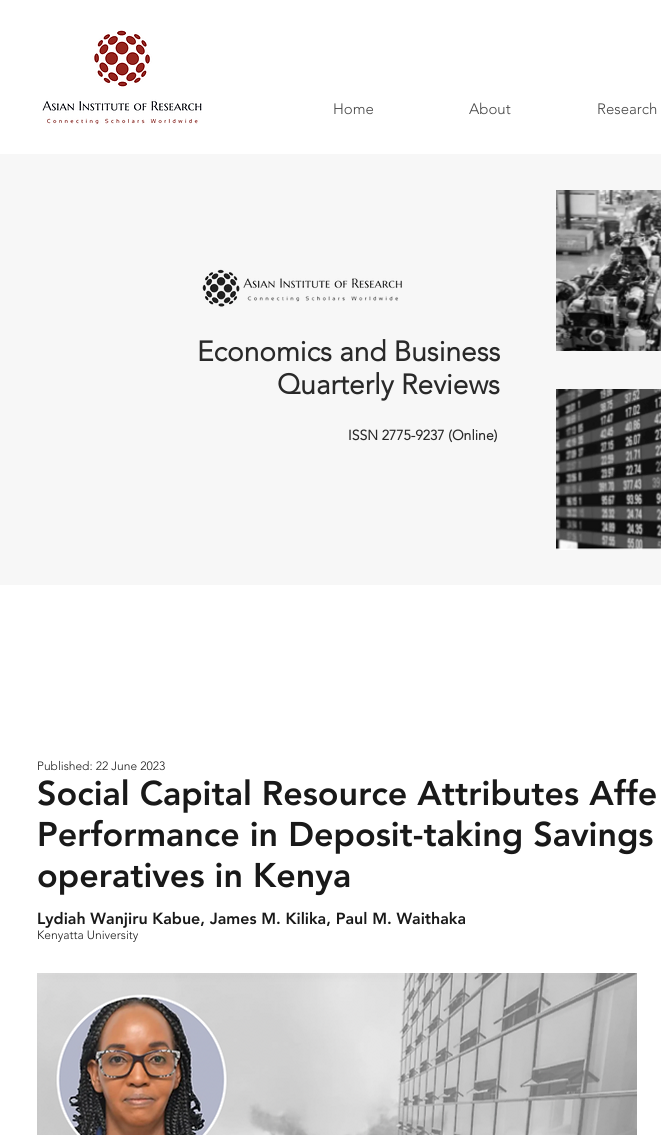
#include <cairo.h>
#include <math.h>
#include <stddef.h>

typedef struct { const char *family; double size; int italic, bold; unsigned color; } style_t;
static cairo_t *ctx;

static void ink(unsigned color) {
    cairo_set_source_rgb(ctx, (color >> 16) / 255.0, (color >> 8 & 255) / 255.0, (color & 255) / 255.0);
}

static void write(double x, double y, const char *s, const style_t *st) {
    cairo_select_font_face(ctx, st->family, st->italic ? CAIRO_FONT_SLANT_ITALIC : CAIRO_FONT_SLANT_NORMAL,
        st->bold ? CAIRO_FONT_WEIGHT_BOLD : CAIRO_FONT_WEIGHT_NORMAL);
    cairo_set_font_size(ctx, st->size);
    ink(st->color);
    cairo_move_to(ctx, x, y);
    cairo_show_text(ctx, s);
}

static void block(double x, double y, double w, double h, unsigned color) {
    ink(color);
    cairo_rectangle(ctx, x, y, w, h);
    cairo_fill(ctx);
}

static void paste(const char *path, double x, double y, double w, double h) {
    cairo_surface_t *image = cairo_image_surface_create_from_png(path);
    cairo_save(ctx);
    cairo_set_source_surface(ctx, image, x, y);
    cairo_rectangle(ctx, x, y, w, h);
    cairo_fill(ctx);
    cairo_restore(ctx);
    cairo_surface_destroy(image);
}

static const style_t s1 = {"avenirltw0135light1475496 Light", 15, 0, 0, 0x444444};
static const style_t s2 = {"avenirltw0135light1475496", 28, 0, 1, 0x292929};
static const style_t s3 = {"avenirltw0135light1475496", 14, 0, 1, 0x292929};
static const style_t s4 = {"avenirltw0135light1475496 Light", 12, 0, 0, 0x191919};
static const style_t s5 = {"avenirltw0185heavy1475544 Black", 34, 0, 0, 0x191919};
static const style_t s6 = {"avenirltw0185heavy1475544 Black", 16, 0, 0, 0x191919};

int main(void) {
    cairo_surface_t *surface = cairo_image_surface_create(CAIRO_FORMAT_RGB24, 661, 1135);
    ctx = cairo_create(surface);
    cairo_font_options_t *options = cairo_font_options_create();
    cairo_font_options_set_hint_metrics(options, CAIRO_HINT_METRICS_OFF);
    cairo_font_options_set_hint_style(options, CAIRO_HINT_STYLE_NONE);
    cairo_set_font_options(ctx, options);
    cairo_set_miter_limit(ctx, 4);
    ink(0xffffff);
    cairo_paint(ctx);
    paste("pic1.png", 42, 30, 160, 95);
    write(333, 114, "Home", &s1);
    write(469, 114, "About", &s1);
    write(597, 114, "Research", &s1);
    block(0, 154, 661, 431, 0xf7f7f7);
    paste("pic2.png", 202, 269, 38, 38);
    paste("pic3.png", 243, 278, 159, 24);
    paste("pic4.png", 556, 190, 105, 161);
    write(197, 361, "Economics and Business", &s2);
    write(277, 394, "Quarterly Reviews", &s2);
    write(348, 440, "ISSN 2775-9237 (Online)", &s3);
    paste("pic5.png", 556, 389, 105, 161);
    write(37, 770, "Published: 22 June 2023", &s4);
    write(37, 805, "Social Capital Resource Attributes Affe", &s5);
    write(37, 846, "Performance in Deposit-taking Savings", &s5);
    write(37, 887, "operatives in Kenya", &s5);
    write(37, 924, "Lydiah Wanjiru Kabue, James M. Kilika, Paul M. Waithaka", &s6);
    write(37, 939, "Kenyatta University", &s4);
    paste("pic6.png", 37, 973, 600, 162);
    cairo_surface_write_to_png(surface, "screenshot.png");
    cairo_font_options_destroy(options);
    cairo_destroy(ctx);
    cairo_surface_destroy(surface);
    return 0;
}
